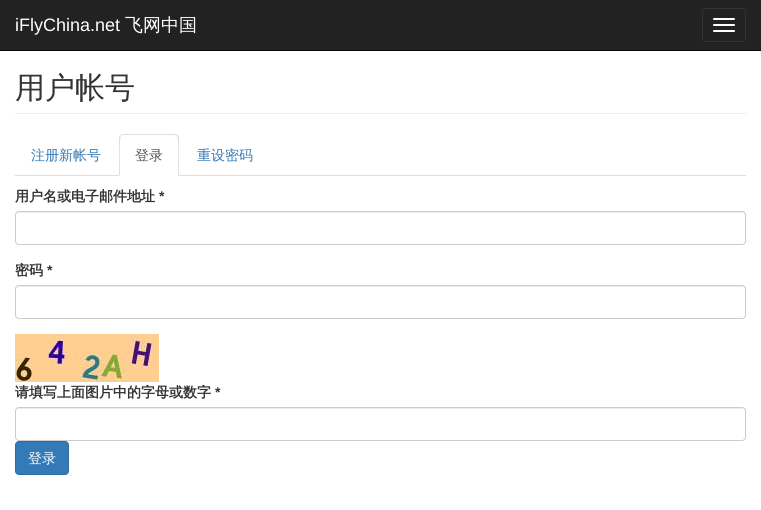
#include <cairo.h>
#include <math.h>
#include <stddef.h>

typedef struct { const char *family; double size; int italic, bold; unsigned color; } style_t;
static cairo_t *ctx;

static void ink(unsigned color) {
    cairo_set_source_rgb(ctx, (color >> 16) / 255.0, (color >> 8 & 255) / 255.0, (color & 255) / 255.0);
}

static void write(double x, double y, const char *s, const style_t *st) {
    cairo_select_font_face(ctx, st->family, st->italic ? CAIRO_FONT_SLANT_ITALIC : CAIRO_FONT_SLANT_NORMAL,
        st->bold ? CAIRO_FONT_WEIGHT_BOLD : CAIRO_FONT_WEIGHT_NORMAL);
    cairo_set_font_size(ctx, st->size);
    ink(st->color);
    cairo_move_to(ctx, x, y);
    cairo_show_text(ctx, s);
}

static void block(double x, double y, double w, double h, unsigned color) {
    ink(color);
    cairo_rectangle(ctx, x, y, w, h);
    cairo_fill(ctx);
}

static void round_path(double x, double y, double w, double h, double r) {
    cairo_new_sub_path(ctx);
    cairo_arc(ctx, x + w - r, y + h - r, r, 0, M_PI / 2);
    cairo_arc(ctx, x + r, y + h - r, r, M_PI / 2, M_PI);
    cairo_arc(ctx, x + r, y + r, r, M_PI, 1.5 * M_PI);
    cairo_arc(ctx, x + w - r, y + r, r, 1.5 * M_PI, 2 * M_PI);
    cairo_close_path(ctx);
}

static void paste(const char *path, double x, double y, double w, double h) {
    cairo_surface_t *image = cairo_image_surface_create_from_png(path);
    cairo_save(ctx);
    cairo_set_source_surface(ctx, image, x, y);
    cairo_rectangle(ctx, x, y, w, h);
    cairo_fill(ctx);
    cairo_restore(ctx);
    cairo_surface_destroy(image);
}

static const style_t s1 = {"Liberation Sans", 18, 0, 0, 0xffffff};
static const style_t s2 = {"WenQuanYi Zen Hei Medium", 18, 0, 0, 0xffffff};
static const style_t s3 = {"WenQuanYi Zen Hei Medium", 30, 0, 0, 0x333333};
static const style_t s4 = {"WenQuanYi Zen Hei Medium", 14, 0, 0, 0x337ab7};
static const style_t s5 = {"WenQuanYi Zen Hei Medium", 14, 0, 0, 0x555555};
static const style_t s6 = {"WenQuanYi Zen Hei", 14, 0, 1, 0x333333};
static const style_t s7 = {"Liberation Sans", 14, 0, 1, 0x333333};
static const style_t s8 = {"WenQuanYi Zen Hei Medium", 14, 0, 0, 0xffffff};

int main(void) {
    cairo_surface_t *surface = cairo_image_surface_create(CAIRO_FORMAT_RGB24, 761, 510);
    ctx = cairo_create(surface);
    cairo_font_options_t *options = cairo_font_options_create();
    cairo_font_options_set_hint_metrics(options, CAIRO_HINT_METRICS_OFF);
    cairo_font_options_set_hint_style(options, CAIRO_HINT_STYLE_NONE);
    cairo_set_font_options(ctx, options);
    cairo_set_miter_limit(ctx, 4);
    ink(0xffffff);
    cairo_paint(ctx);
    block(0, 0, 761, 50, 0x222222);
    block(0, 50, 761, 1, 0x090909);
    write(15, 31, "iFlyChina.net", &s1);
    write(125, 31, "飞网中国", &s2);
    round_path(702.5, 8.5, 43, 33, 3.5);
    ink(0x333333);
    cairo_set_line_width(ctx, 1);
    cairo_stroke(ctx);
    ink(0xffffff);
    round_path(713, 18, 22, 2, 1);
    cairo_fill(ctx);
    round_path(713, 24, 22, 2, 1);
    cairo_fill(ctx);
    round_path(713, 30, 22, 2, 1);
    cairo_fill(ctx);
    block(15, 113, 731, 1, 0xeeeeee);
    write(15, 98, "用户帐号", &s3);
    block(15, 175, 731, 1, 0xdddddd);
    write(31, 160, "注册新帐号", &s4);
    ink(0xffffff);
    cairo_new_path(ctx);
    cairo_move_to(ctx, 123, 134);
    cairo_line_to(ctx, 175, 134);
    cairo_curve_to(ctx, 177, 134, 179, 136, 179, 138);
    cairo_line_to(ctx, 179, 176);
    cairo_line_to(ctx, 119, 176);
    cairo_line_to(ctx, 119, 138);
    cairo_curve_to(ctx, 119, 136, 121, 134, 123, 134);
    cairo_close_path(ctx);
    cairo_fill(ctx);
    ink(0xdddddd);
    cairo_new_path(ctx);
    cairo_move_to(ctx, 123, 134);
    cairo_line_to(ctx, 120, 135);
    cairo_line_to(ctx, 121, 136);
    cairo_line_to(ctx, 122, 135);
    cairo_line_to(ctx, 175, 135);
    cairo_line_to(ctx, 177, 136);
    cairo_line_to(ctx, 178, 135);
    cairo_line_to(ctx, 175, 134);
    cairo_close_path(ctx);
    cairo_fill(ctx);
    cairo_new_path(ctx);
    cairo_move_to(ctx, 179, 176);
    cairo_line_to(ctx, 179, 138);
    cairo_curve_to(ctx, 179, 137, 178, 136, 178, 135);
    cairo_line_to(ctx, 177, 136);
    cairo_curve_to(ctx, 179, 138, 178, 170, 178, 175);
    cairo_close_path(ctx);
    cairo_move_to(ctx, 119, 176);
    cairo_line_to(ctx, 120, 175);
    cairo_curve_to(ctx, 120, 170, 119, 138, 121, 136);
    cairo_line_to(ctx, 120, 135);
    cairo_line_to(ctx, 119, 138);
    cairo_close_path(ctx);
    cairo_fill(ctx);
    write(135, 160, "登录", &s5);
    write(197, 160, "重设密码", &s4);
    write(15, 201, "用户名或电子邮件地址", &s6);
    write(159, 201, "*", &s7);
    ink(0xececec);
    cairo_new_path(ctx);
    cairo_move_to(ctx, 19, 213);
    cairo_line_to(ctx, 742, 213);
    cairo_curve_to(ctx, 744, 213, 745, 214, 745, 216);
    cairo_curve_to(ctx, 745, 214, 744, 212, 742, 212);
    cairo_line_to(ctx, 19, 212);
    cairo_curve_to(ctx, 17, 212, 16, 214, 16, 216);
    cairo_curve_to(ctx, 16, 214, 17, 213, 19, 213);
    cairo_close_path(ctx);
    cairo_fill(ctx);
    round_path(15.5, 211.5, 730, 33, 3.5);
    ink(0xcccccc);
    cairo_stroke(ctx);
    write(15, 275, "密码", &s6);
    write(47, 275, "*", &s7);
    ink(0xececec);
    cairo_new_path(ctx);
    cairo_move_to(ctx, 19, 287);
    cairo_line_to(ctx, 742, 287);
    cairo_curve_to(ctx, 744, 287, 745, 288, 745, 290);
    cairo_curve_to(ctx, 745, 288, 744, 286, 742, 286);
    cairo_line_to(ctx, 19, 286);
    cairo_curve_to(ctx, 17, 286, 16, 288, 16, 290);
    cairo_curve_to(ctx, 16, 288, 17, 287, 19, 287);
    cairo_close_path(ctx);
    cairo_fill(ctx);
    round_path(15.5, 285.5, 730, 33, 3.5);
    ink(0xcccccc);
    cairo_stroke(ctx);
    paste("pic1.png", 15, 334, 144, 48);
    write(15, 397, "请填写上面图片中的字母或数字", &s6);
    write(215, 397, "*", &s7);
    ink(0xececec);
    cairo_new_path(ctx);
    cairo_move_to(ctx, 19, 409);
    cairo_line_to(ctx, 742, 409);
    cairo_curve_to(ctx, 744, 409, 745, 410, 745, 412);
    cairo_curve_to(ctx, 745, 410, 744, 408, 742, 408);
    cairo_line_to(ctx, 19, 408);
    cairo_curve_to(ctx, 17, 408, 16, 410, 16, 412);
    cairo_curve_to(ctx, 16, 410, 17, 409, 19, 409);
    cairo_close_path(ctx);
    cairo_fill(ctx);
    round_path(15.5, 407.5, 730, 33, 3.5);
    ink(0xcccccc);
    cairo_stroke(ctx);
    ink(0x337ab7);
    round_path(15.5, 441.5, 53, 33, 3.5);
    cairo_fill_preserve(ctx);
    ink(0x2e6da4);
    cairo_stroke(ctx);
    write(28, 463, "登录", &s8);
    cairo_surface_write_to_png(surface, "screenshot.png");
    cairo_font_options_destroy(options);
    cairo_destroy(ctx);
    cairo_surface_destroy(surface);
    return 0;
}
